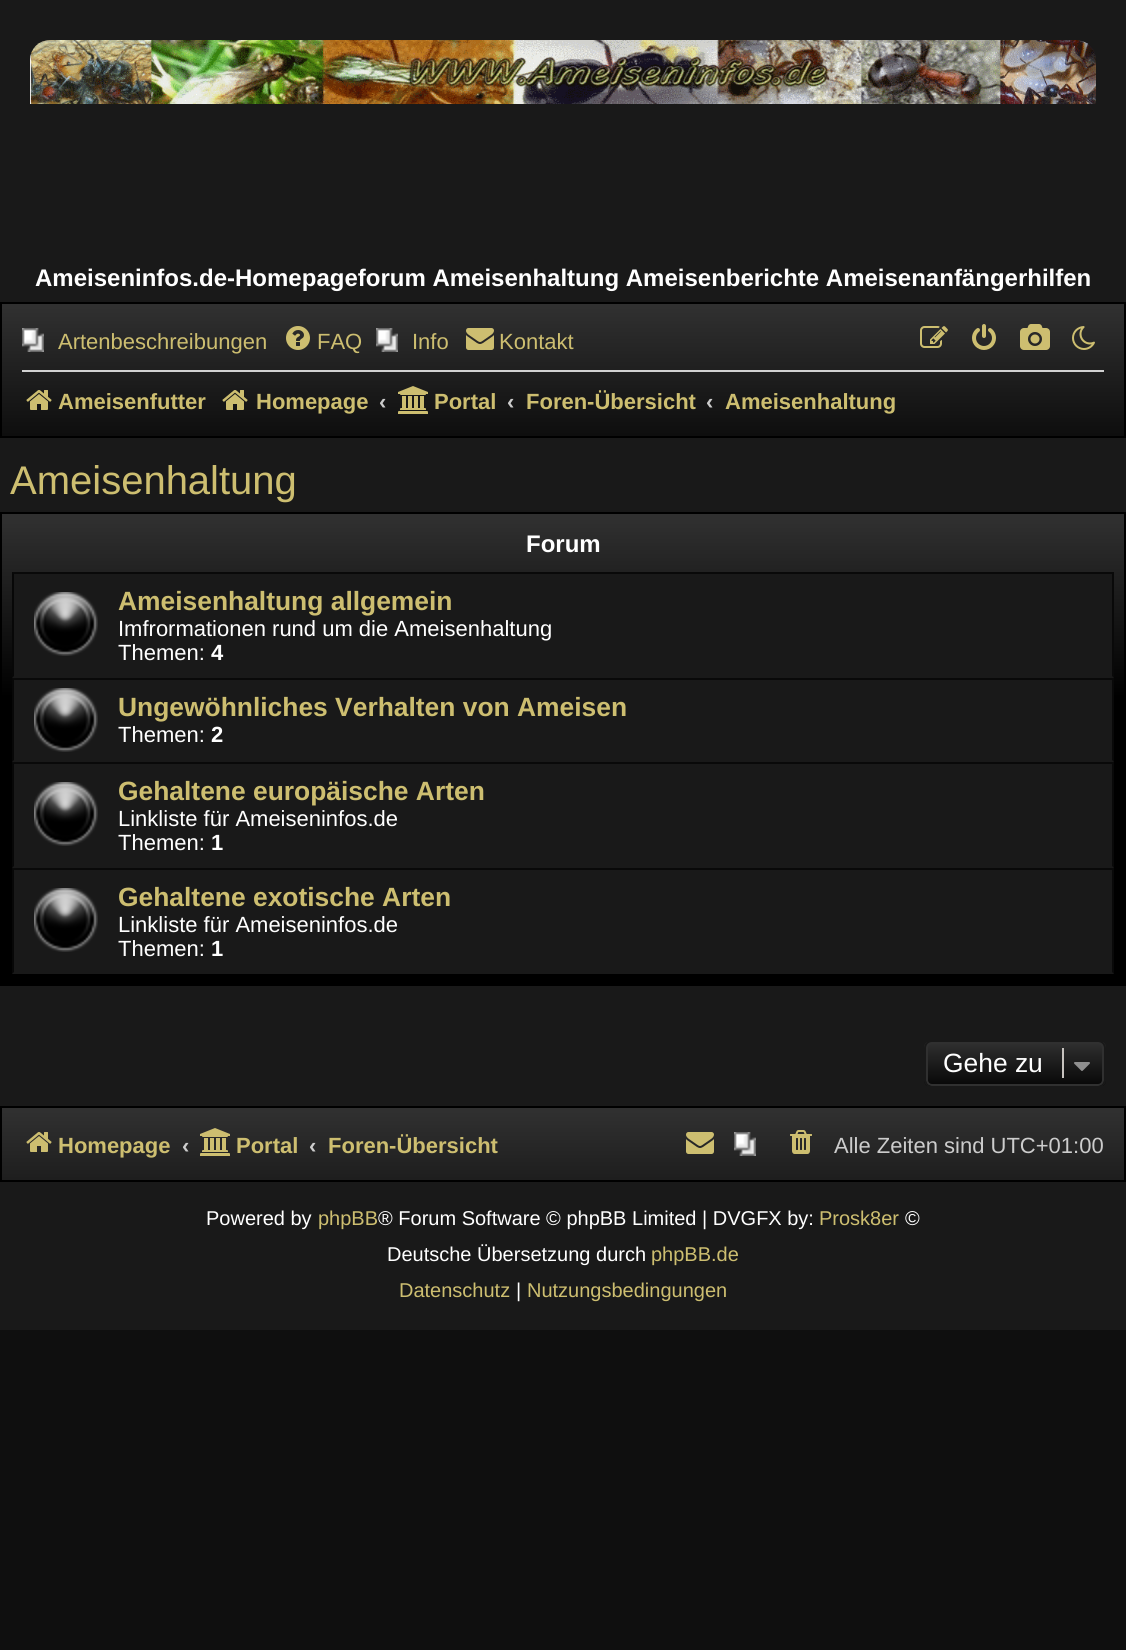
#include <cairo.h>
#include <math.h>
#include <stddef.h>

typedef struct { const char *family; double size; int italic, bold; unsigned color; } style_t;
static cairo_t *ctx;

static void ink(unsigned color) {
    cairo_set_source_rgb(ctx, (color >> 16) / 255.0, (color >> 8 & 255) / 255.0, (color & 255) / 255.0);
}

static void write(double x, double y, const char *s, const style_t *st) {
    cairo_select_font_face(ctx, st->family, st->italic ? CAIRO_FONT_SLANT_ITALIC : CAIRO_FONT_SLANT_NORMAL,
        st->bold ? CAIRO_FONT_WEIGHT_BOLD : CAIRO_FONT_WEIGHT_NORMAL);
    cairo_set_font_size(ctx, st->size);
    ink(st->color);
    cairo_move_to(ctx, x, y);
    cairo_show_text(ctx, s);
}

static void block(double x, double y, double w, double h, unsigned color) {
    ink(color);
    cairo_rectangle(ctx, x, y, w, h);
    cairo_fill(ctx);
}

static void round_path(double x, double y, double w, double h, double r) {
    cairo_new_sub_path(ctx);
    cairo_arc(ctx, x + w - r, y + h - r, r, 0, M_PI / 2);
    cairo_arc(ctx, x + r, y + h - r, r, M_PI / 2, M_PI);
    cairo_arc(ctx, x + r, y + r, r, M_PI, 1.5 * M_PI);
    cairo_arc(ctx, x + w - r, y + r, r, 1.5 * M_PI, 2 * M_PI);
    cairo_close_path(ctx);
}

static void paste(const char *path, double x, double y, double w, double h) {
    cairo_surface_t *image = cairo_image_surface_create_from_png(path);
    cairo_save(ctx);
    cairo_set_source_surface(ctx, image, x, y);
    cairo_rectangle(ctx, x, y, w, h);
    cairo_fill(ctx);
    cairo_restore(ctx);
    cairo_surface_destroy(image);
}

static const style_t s1 = {"Liberation Sans", 24, 0, 1, 0xffffff};
static const style_t s2 = {"Liberation Sans", 22, 0, 0, 0xcdbe70};
static const style_t s3 = {"Liberation Sans", 22, 0, 1, 0xcdbe70};
static const style_t s4 = {"Liberation Sans", 22, 0, 1, 0xcccccc};
static const style_t s5 = {"Liberation Sans", 40, 0, 0, 0xcdbe70};
static const style_t s6 = {"Liberation Sans", 26.4, 0, 1, 0xcdbe70};
static const style_t s7 = {"Liberation Sans", 22, 0, 0, 0xffffff};
static const style_t s8 = {"Liberation Sans", 22, 0, 1, 0xffffff};
static const style_t s9 = {"Liberation Sans", 26.4, 0, 0, 0xffffff};
static const style_t s10 = {"Liberation Sans", 22, 0, 0, 0xcccccc};
static const style_t s11 = {"Liberation Sans", 20, 0, 0, 0xffffff};
static const style_t s12 = {"Liberation Sans", 20, 0, 0, 0xcdbe70};

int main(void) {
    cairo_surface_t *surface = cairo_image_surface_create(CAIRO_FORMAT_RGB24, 1126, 1650);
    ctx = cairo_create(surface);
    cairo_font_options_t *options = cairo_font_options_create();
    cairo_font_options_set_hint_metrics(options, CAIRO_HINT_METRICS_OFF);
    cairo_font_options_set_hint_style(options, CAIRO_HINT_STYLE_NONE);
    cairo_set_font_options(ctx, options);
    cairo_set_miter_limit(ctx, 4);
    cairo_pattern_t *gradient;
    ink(0x0f0f0f);
    cairo_paint(ctx);
    block(0, 0, 1126, 1330, 0x191919);
    paste("pic1.png", 30, 40, 1066, 64);
    write(35, 286, "Ameiseninfos.de-Homepageforum Ameisenhaltung Ameisenberichte Ameisenanfängerhilfen", &s1);
    gradient = cairo_pattern_create_linear(563, 304, 563, 488);
    cairo_pattern_add_color_stop_rgba(gradient, 0, 0.188, 0.188, 0.188, 1);
    cairo_pattern_add_color_stop_rgba(gradient, 0.02, 0.188, 0.188, 0.188, 1);
    cairo_pattern_add_color_stop_rgba(gradient, 1, 0, 0, 0, 1);
    cairo_set_source(ctx, gradient);
    cairo_pattern_destroy(gradient);
    cairo_rectangle(ctx, 2, 304, 1122, 132);
    cairo_fill(ctx);
    cairo_rectangle(ctx, 1, 303, 1124, 134);
    ink(0x000000);
    cairo_stroke(ctx);
    paste("pic2.png", 22, 328, 22, 24);
    write(58, 349, "Artenbeschreibungen", &s2);
    paste("pic3.png", 286, 326, 24, 24);
    write(317, 349, "FAQ", &s2);
    paste("pic2.png", 376, 328, 22, 24);
    write(412, 349, "Info", &s2);
    paste("pic4.png", 466, 328, 28, 22);
    write(499, 349, "Kontakt", &s2);
    paste("pic5.png", 920, 326, 28, 22);
    paste("pic6.png", 972, 324, 24, 26);
    paste("pic7.png", 1020, 324, 30, 26);
    paste("pic8.png", 1072, 326, 23, 24);
    block(22, 370, 1082, 2, 0xd2d2d2);
    paste("pic9.png", 26, 390, 26, 20);
    write(58, 409, "Ameisenfutter", &s3);
    paste("pic9.png", 222, 390, 26, 20);
    write(256, 409, "Homepage", &s3);
    write(379, 409, "‹", &s4);
    paste("pic10.png", 398, 386, 30, 28);
    write(434, 409, "Portal", &s3);
    write(507, 409, "‹", &s4);
    write(526, 409, "Foren-Übersicht", &s3);
    write(706, 409, "‹", &s4);
    write(725, 409, "Ameisenhaltung", &s3);
    write(10, 494, "Ameisenhaltung", &s5);
    gradient = cairo_pattern_create_linear(563, 514, 563, 984);
    cairo_pattern_add_color_stop_rgba(gradient, 0, 0.188, 0.188, 0.188, 1);
    cairo_pattern_add_color_stop_rgba(gradient, 0.01, 0.188, 0.188, 0.188, 1);
    cairo_pattern_add_color_stop_rgba(gradient, 0.39, 0, 0, 0, 1);
    cairo_pattern_add_color_stop_rgba(gradient, 1, 0, 0, 0, 1);
    cairo_set_source(ctx, gradient);
    cairo_pattern_destroy(gradient);
    cairo_rectangle(ctx, 2, 514, 1122, 470);
    cairo_fill(ctx);
    cairo_rectangle(ctx, 1, 513, 1124, 472);
    ink(0x000000);
    cairo_stroke(ctx);
    write(526, 552, "Forum", &s1);
    block(12, 574, 1102, 400, 0x191919);
    block(12, 572, 1102, 2, 0x090909);
    cairo_new_path(ctx);
    cairo_move_to(ctx, 1114, 572);
    cairo_line_to(ctx, 1114, 678);
    cairo_line_to(ctx, 1112, 676);
    cairo_line_to(ctx, 1112, 574);
    cairo_close_path(ctx);
    cairo_fill(ctx);
    ink(0x070707);
    cairo_new_path(ctx);
    cairo_move_to(ctx, 12, 678);
    cairo_line_to(ctx, 12, 572);
    cairo_line_to(ctx, 14, 574);
    cairo_line_to(ctx, 14, 676);
    cairo_close_path(ctx);
    cairo_fill(ctx);
    paste("pic11.png", 34, 592, 64, 64);
    write(118, 610, "Ameisenhaltung allgemein", &s6);
    write(118, 636, "Imfrormationen rund um die Ameisenhaltung", &s7);
    write(118, 660, "Themen:", &s7);
    write(211, 660, "4", &s8);
    block(12, 678, 1102, 2, 0x090909);
    cairo_new_path(ctx);
    cairo_move_to(ctx, 1114, 678);
    cairo_line_to(ctx, 1114, 762);
    cairo_line_to(ctx, 1112, 760);
    cairo_line_to(ctx, 1112, 680);
    cairo_close_path(ctx);
    cairo_fill(ctx);
    ink(0x070707);
    cairo_new_path(ctx);
    cairo_move_to(ctx, 12, 762);
    cairo_line_to(ctx, 12, 678);
    cairo_line_to(ctx, 14, 680);
    cairo_line_to(ctx, 14, 760);
    cairo_close_path(ctx);
    cairo_fill(ctx);
    paste("pic11.png", 34, 688, 64, 64);
    write(118, 716, "Ungewöhnliches Verhalten von Ameisen", &s6);
    write(118, 742, "Themen:", &s7);
    write(211, 742, "2", &s8);
    block(12, 762, 1102, 2, 0x090909);
    cairo_new_path(ctx);
    cairo_move_to(ctx, 1114, 762);
    cairo_line_to(ctx, 1114, 868);
    cairo_line_to(ctx, 1112, 866);
    cairo_line_to(ctx, 1112, 764);
    cairo_close_path(ctx);
    cairo_fill(ctx);
    ink(0x070707);
    cairo_new_path(ctx);
    cairo_move_to(ctx, 12, 868);
    cairo_line_to(ctx, 12, 762);
    cairo_line_to(ctx, 14, 764);
    cairo_line_to(ctx, 14, 866);
    cairo_close_path(ctx);
    cairo_fill(ctx);
    paste("pic11.png", 34, 782, 64, 64);
    write(118, 800, "Gehaltene europäische Arten", &s6);
    write(118, 826, "Linkliste für Ameiseninfos.de", &s7);
    write(118, 850, "Themen:", &s7);
    write(211, 850, "1", &s8);
    block(12, 868, 1102, 2, 0x090909);
    cairo_new_path(ctx);
    cairo_move_to(ctx, 1114, 868);
    cairo_line_to(ctx, 1114, 974);
    cairo_line_to(ctx, 1112, 972);
    cairo_line_to(ctx, 1112, 870);
    cairo_close_path(ctx);
    cairo_fill(ctx);
    ink(0x070707);
    cairo_new_path(ctx);
    cairo_move_to(ctx, 12, 974);
    cairo_line_to(ctx, 12, 868);
    cairo_line_to(ctx, 14, 870);
    cairo_line_to(ctx, 14, 972);
    cairo_close_path(ctx);
    cairo_fill(ctx);
    paste("pic11.png", 34, 888, 64, 64);
    write(118, 906, "Gehaltene exotische Arten", &s6);
    write(118, 932, "Linkliste für Ameiseninfos.de", &s7);
    write(118, 956, "Themen:", &s7);
    write(211, 956, "1", &s8);
    cairo_save(ctx);
    round_path(924, 1040, 182, 48, 8);
    cairo_clip(ctx);
    gradient = cairo_pattern_create_linear(1015, 1042, 1015, 1086);
    cairo_pattern_add_color_stop_rgba(gradient, 0, 0.188, 0.188, 0.188, 1);
    cairo_pattern_add_color_stop_rgba(gradient, 1, 0.027, 0.027, 0.027, 1);
    cairo_set_source(ctx, gradient);
    cairo_pattern_destroy(gradient);
    cairo_rectangle(ctx, 924, 1042, 182, 44);
    cairo_fill(ctx);
    cairo_restore(ctx);
    round_path(927, 1043, 176, 42, 5);
    ink(0x303030);
    cairo_stroke(ctx);
    round_path(925, 1041, 180, 46, 7);
    ink(0x191919);
    cairo_stroke(ctx);
    write(943, 1072, "Gehe zu", &s9);
    block(1062, 1048, 2, 30, 0xc7c3bf);
    paste("pic12.png", 1074, 1062, 16, 9);
    gradient = cairo_pattern_create_linear(563, 1108, 563, 1292);
    cairo_pattern_add_color_stop_rgba(gradient, 0, 0.188, 0.188, 0.188, 1);
    cairo_pattern_add_color_stop_rgba(gradient, 0.02, 0.188, 0.188, 0.188, 1);
    cairo_pattern_add_color_stop_rgba(gradient, 1, 0, 0, 0, 1);
    cairo_set_source(ctx, gradient);
    cairo_pattern_destroy(gradient);
    cairo_rectangle(ctx, 2, 1108, 1122, 72);
    cairo_fill(ctx);
    cairo_rectangle(ctx, 1, 1107, 1124, 74);
    ink(0x000000);
    cairo_stroke(ctx);
    paste("pic13.png", 26, 1132, 26, 20);
    write(58, 1153, "Homepage", &s3);
    write(182, 1153, "‹", &s4);
    paste("pic14.png", 200, 1128, 30, 28);
    write(236, 1153, "Portal", &s3);
    write(309, 1153, "‹", &s4);
    write(328, 1153, "Foren-Übersicht", &s3);
    paste("pic4.png", 686, 1132, 28, 22);
    paste("pic2.png", 734, 1132, 22, 24);
    paste("pic15.png", 790, 1130, 22, 24);
    write(834, 1153, "Alle Zeiten sind UTC+01:00", &s10);
    write(206, 1225, "Powered by", &s11);
    write(318, 1225, "phpBB", &s12);
    write(378, 1225, "® Forum Software © phpBB Limited | DVGFX by:", &s11);
    write(819, 1225, "Prosk8er", &s12);
    write(905, 1225, "©", &s11);
    write(387, 1261, "Deutsche Übersetzung durch", &s11);
    write(651, 1261, "phpBB.de", &s12);
    write(399, 1297, "Datenschutz", &s12);
    write(516, 1297, "|", &s11);
    write(527, 1297, "Nutzungsbedingungen", &s12);
    cairo_surface_write_to_png(surface, "screenshot.png");
    cairo_font_options_destroy(options);
    cairo_destroy(ctx);
    cairo_surface_destroy(surface);
    return 0;
}
